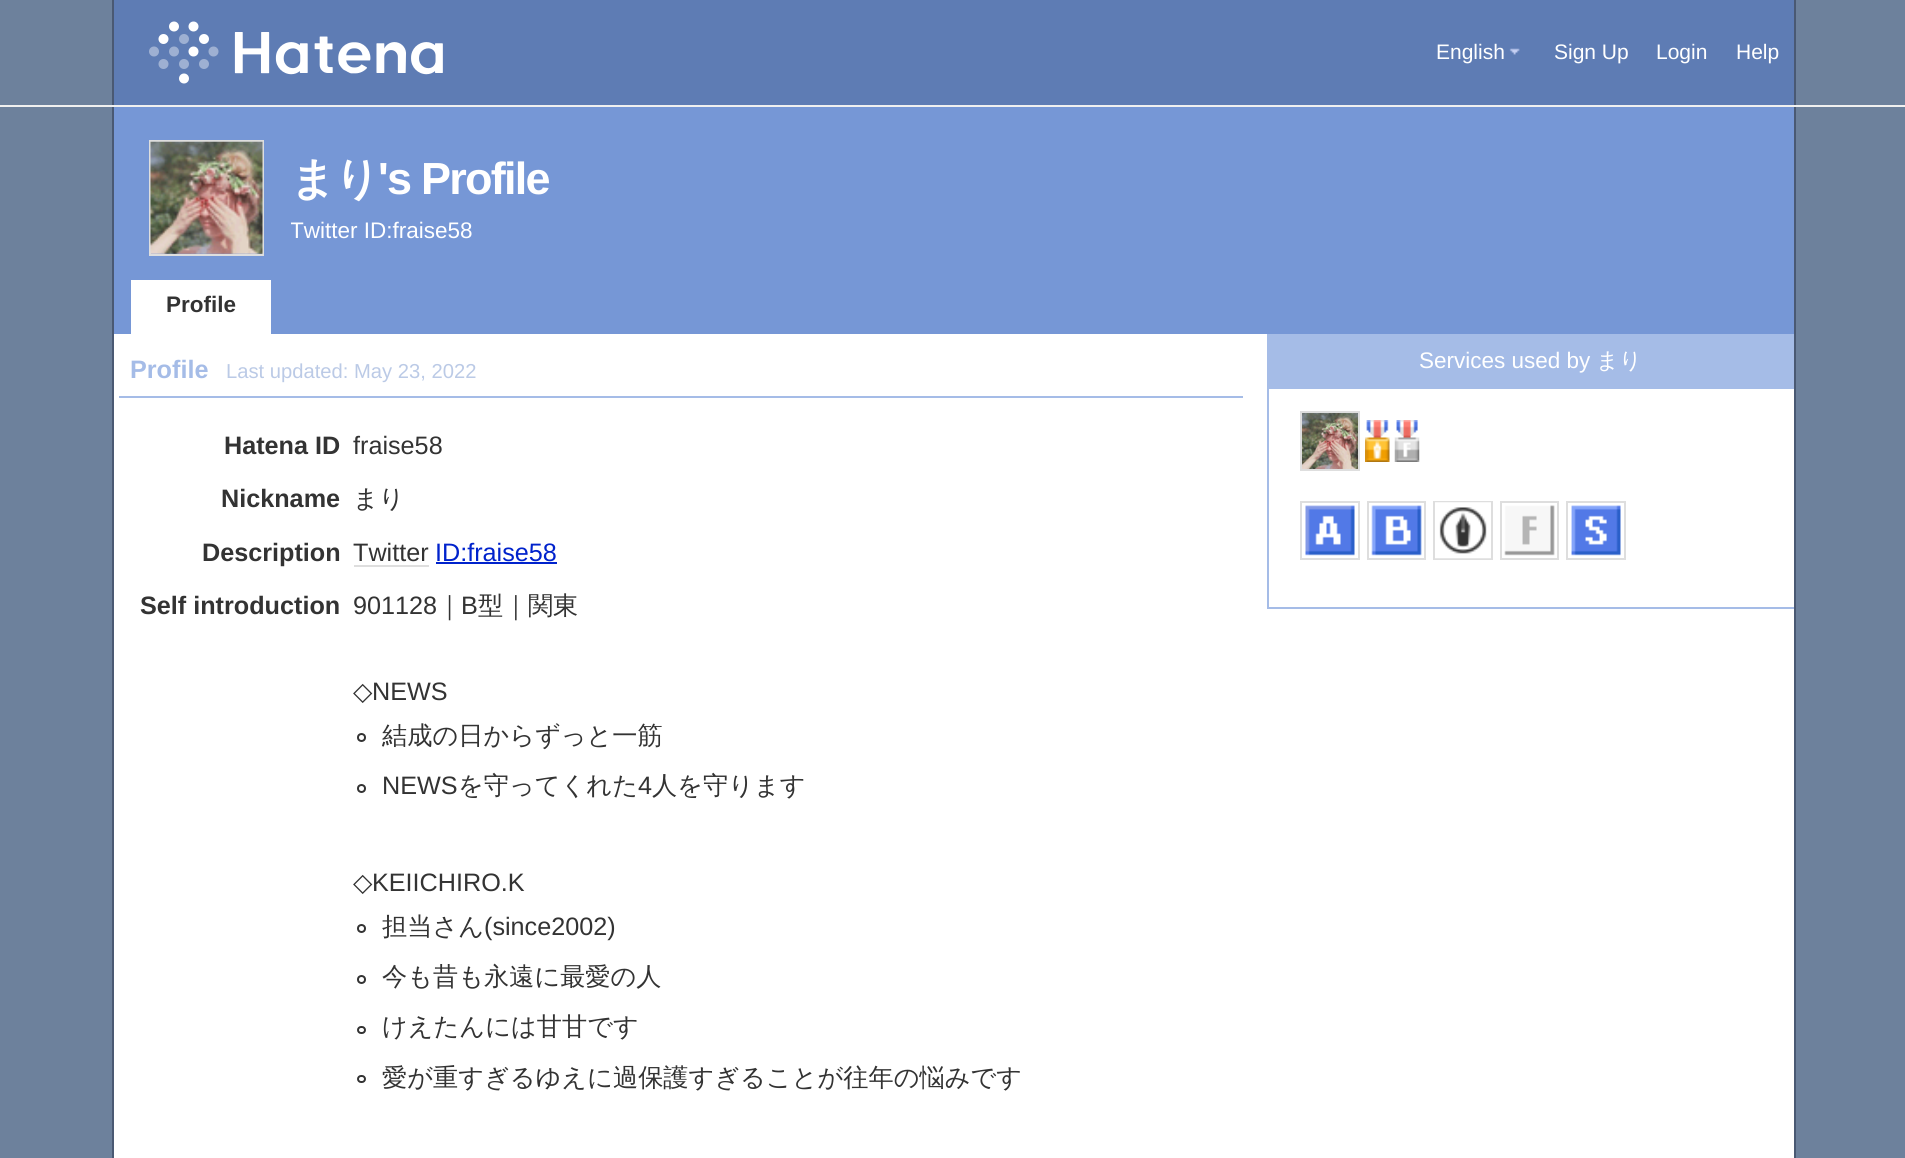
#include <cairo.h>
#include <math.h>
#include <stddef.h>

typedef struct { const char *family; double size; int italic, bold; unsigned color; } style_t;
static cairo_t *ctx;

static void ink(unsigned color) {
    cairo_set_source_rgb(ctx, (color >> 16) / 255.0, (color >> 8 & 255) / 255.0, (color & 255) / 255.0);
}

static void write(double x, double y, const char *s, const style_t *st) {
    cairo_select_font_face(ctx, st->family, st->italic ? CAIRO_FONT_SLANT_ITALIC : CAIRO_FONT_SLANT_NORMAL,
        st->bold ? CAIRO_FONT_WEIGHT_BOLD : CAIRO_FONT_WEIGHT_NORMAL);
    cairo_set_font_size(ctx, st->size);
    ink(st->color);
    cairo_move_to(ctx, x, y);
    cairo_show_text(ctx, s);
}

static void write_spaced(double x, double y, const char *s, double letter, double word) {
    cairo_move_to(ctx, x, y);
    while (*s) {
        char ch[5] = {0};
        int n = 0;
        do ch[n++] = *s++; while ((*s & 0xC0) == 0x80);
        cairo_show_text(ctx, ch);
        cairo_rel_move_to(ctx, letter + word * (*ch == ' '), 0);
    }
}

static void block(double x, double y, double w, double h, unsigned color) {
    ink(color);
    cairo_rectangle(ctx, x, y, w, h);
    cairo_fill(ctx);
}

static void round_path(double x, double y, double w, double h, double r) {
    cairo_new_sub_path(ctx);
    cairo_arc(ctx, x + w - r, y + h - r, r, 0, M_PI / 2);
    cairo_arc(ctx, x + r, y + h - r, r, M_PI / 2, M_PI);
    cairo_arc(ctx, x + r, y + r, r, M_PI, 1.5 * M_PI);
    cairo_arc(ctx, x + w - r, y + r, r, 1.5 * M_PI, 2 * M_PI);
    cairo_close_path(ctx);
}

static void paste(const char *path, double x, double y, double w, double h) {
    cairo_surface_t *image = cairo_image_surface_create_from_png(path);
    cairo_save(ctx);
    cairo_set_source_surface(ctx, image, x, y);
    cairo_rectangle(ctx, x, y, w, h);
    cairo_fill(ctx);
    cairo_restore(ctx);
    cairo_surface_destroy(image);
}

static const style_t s1 = {"Liberation Sans", 21, 0, 0, 0xffffff};
static const style_t s2 = {"Liberation Sans", 22.5, 0, 0, 0xffffff};
static const style_t s3 = {"Liberation Sans", 22.5, 0, 1, 0x333333};
static const style_t s4 = {"Liberation Sans", 25.2, 0, 1, 0xa5bce7};
static const style_t s5 = {"Liberation Sans", 20.2, 0, 0, 0xbbcae6};
static const style_t s6 = {"Liberation Sans", 25.2, 0, 1, 0x333333};
static const style_t s7 = {"Liberation Sans", 25.2, 0, 0, 0x333333};
static const style_t s8 = {"WenQuanYi Zen Hei Medium", 25.2, 0, 0, 0x333333};
static const style_t s9 = {"Liberation Sans", 25.2, 0, 0, 0x0022cc};
static const style_t s10 = {"DejaVu Sans", 25.2, 0, 0, 0x333333};
static const style_t s11 = {"WenQuanYi Zen Hei Medium", 22.5, 0, 0, 0xffffff};

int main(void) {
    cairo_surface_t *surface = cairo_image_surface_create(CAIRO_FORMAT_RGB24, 1905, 1158);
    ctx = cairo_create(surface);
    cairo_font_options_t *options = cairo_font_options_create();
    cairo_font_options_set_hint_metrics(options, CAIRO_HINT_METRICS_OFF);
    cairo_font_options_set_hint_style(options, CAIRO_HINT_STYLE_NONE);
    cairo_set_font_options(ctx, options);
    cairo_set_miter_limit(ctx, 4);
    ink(0x6d819c);
    cairo_paint(ctx);
    block(0, 105, 1905, 2, 0xf0f0f0);
    block(114, 0, 1680, 105, 0x5e7cb4);
    block(1794, 0, 2, 105, 0x4a5973);
    block(112, 0, 2, 105, 0x4a5973);
    paste("pic1.png", 149, 21, 294, 63);
    paste("pic2.png", 1509, 48, 11, 7);
    write(1436, 59, "English", &s1);
    write(1554, 59, "Sign Up", &s1);
    write(1656, 59, "Login", &s1);
    write(1736, 59, "Help", &s1);
    block(114, 107, 1680, 227, 0x7697d6);
    cairo_rectangle(ctx, 150, 141, 113, 114);
    ink(0xdedede);
    cairo_stroke(ctx);
    paste("pic3.png", 150, 141, 113, 113);
    cairo_select_font_face(ctx, "WenQuanYi Zen Hei", CAIRO_FONT_SLANT_NORMAL, CAIRO_FONT_WEIGHT_BOLD);
    cairo_set_font_size(ctx, 45);
    ink(0xffffff);
    write_spaced(290, 194, "まり", -1.75, 0);
    cairo_select_font_face(ctx, "Liberation Sans", CAIRO_FONT_SLANT_NORMAL, CAIRO_FONT_WEIGHT_BOLD);
    write_spaced(378, 194, "'s Profile", -1.75, 0);
    cairo_save(ctx);
    cairo_rectangle(ctx, 291, 212, 1312, 42);
    cairo_clip(ctx);
    write(290, 238, "Twitter ID:fraise58", &s2);
    cairo_restore(ctx);
    block(131, 280, 140, 54, 0xffffff);
    write(166, 312, "Profile", &s3);
    block(114, 334, 1680, 824, 0xffffff);
    block(1794, 107, 2, 1051, 0x4a5973);
    block(112, 107, 2, 1051, 0x4a5973);
    block(119, 396, 1124, 2, 0xa5bce7);
    write(130, 378, "Profile", &s4);
    write(226, 378, "Last updated: May 23, 2022", &s5);
    write(224, 454, "Hatena ID", &s6);
    write(353, 454, "fraise58", &s7);
    write(221, 507, "Nickname", &s6);
    write(353, 507, "まり", &s8);
    write(202, 561, "Description", &s6);
    write(353, 561, "Twitter", &s7);
    block(354, 565, 75, 2, 0xdedede);
    write(435, 561, "ID:fraise58", &s9);
    block(436, 562, 121, 2, 0x0022cc);
    write(140, 614, "Self introduction", &s6);
    write(353, 614, "901128", &s7);
    write(437, 614, "｜", &s8);
    write(461, 614, "B", &s7);
    write(478, 614, "型｜関東", &s8);
    write(353, 700, "◇", &s10);
    write(372, 700, "NEWS", &s7);
    cairo_new_path(ctx);
    cairo_arc(ctx, 361.5, 737.5, 3.5, 0, 2 * M_PI);
    cairo_stroke(ctx);
    write(382, 744, "結成の日からずっと一筋", &s8);
    cairo_new_path(ctx);
    cairo_arc(ctx, 361.5, 788.5, 3.5, 0, 2 * M_PI);
    cairo_stroke(ctx);
    write(382, 794, "NEWS", &s7);
    write(458, 794, "を守ってくれた", &s8);
    write(638, 794, "4", &s7);
    write(652, 794, "人を守ります", &s8);
    write(353, 891, "◇", &s10);
    write(372, 891, "KEIICHIRO.K", &s7);
    cairo_new_path(ctx);
    cairo_arc(ctx, 361.5, 928.5, 3.5, 0, 2 * M_PI);
    cairo_stroke(ctx);
    write(382, 935, "担当さん", &s8);
    write(484, 935, "(since2002)", &s7);
    cairo_new_path(ctx);
    cairo_arc(ctx, 361.5, 979.5, 3.5, 0, 2 * M_PI);
    cairo_stroke(ctx);
    write(382, 985, "今も昔も永遠に最愛の人", &s8);
    round_path(358, 1027, 7, 6, 3);
    cairo_stroke(ctx);
    write(382, 1035, "けえたんには甘甘です", &s8);
    round_path(358, 1076, 7, 6, 3);
    cairo_stroke(ctx);
    write(382, 1086, "愛が重すぎるゆえに過保護すぎることが往年の悩みです", &s8);
    block(1267, 607, 527, 2, 0xa5bce7);
    block(1267, 334, 2, 275, 0xa5bce7);
    block(1269, 334, 525, 55, 0xa5bce7);
    write(1419, 368, "Services used by", &s2);
    write(1596, 368, "まり", &s11);
    cairo_rectangle(ctx, 1301, 412, 58, 58);
    ink(0xdedede);
    cairo_stroke(ctx);
    paste("pic4.png", 1302, 413, 56, 56);
    paste("pic5.png", 1365, 420, 25, 42);
    paste("pic6.png", 1394, 420, 26, 42);
    cairo_rectangle(ctx, 1301, 502, 58, 57);
    cairo_stroke(ctx);
    paste("pic7.png", 1305, 505, 50, 51);
    cairo_rectangle(ctx, 1368, 502, 57, 57);
    cairo_stroke(ctx);
    paste("pic8.png", 1371, 505, 51, 51);
    cairo_rectangle(ctx, 1434, 502, 58, 57);
    cairo_stroke(ctx);
    paste("pic9.png", 1435, 502, 56, 57);
    cairo_rectangle(ctx, 1501, 502, 57, 57);
    cairo_stroke(ctx);
    paste("pic10.png", 1504, 505, 51, 51);
    cairo_rectangle(ctx, 1567, 502, 58, 57);
    cairo_stroke(ctx);
    paste("pic11.png", 1571, 505, 50, 51);
    cairo_surface_write_to_png(surface, "screenshot.png");
    cairo_font_options_destroy(options);
    cairo_destroy(ctx);
    cairo_surface_destroy(surface);
    return 0;
}
